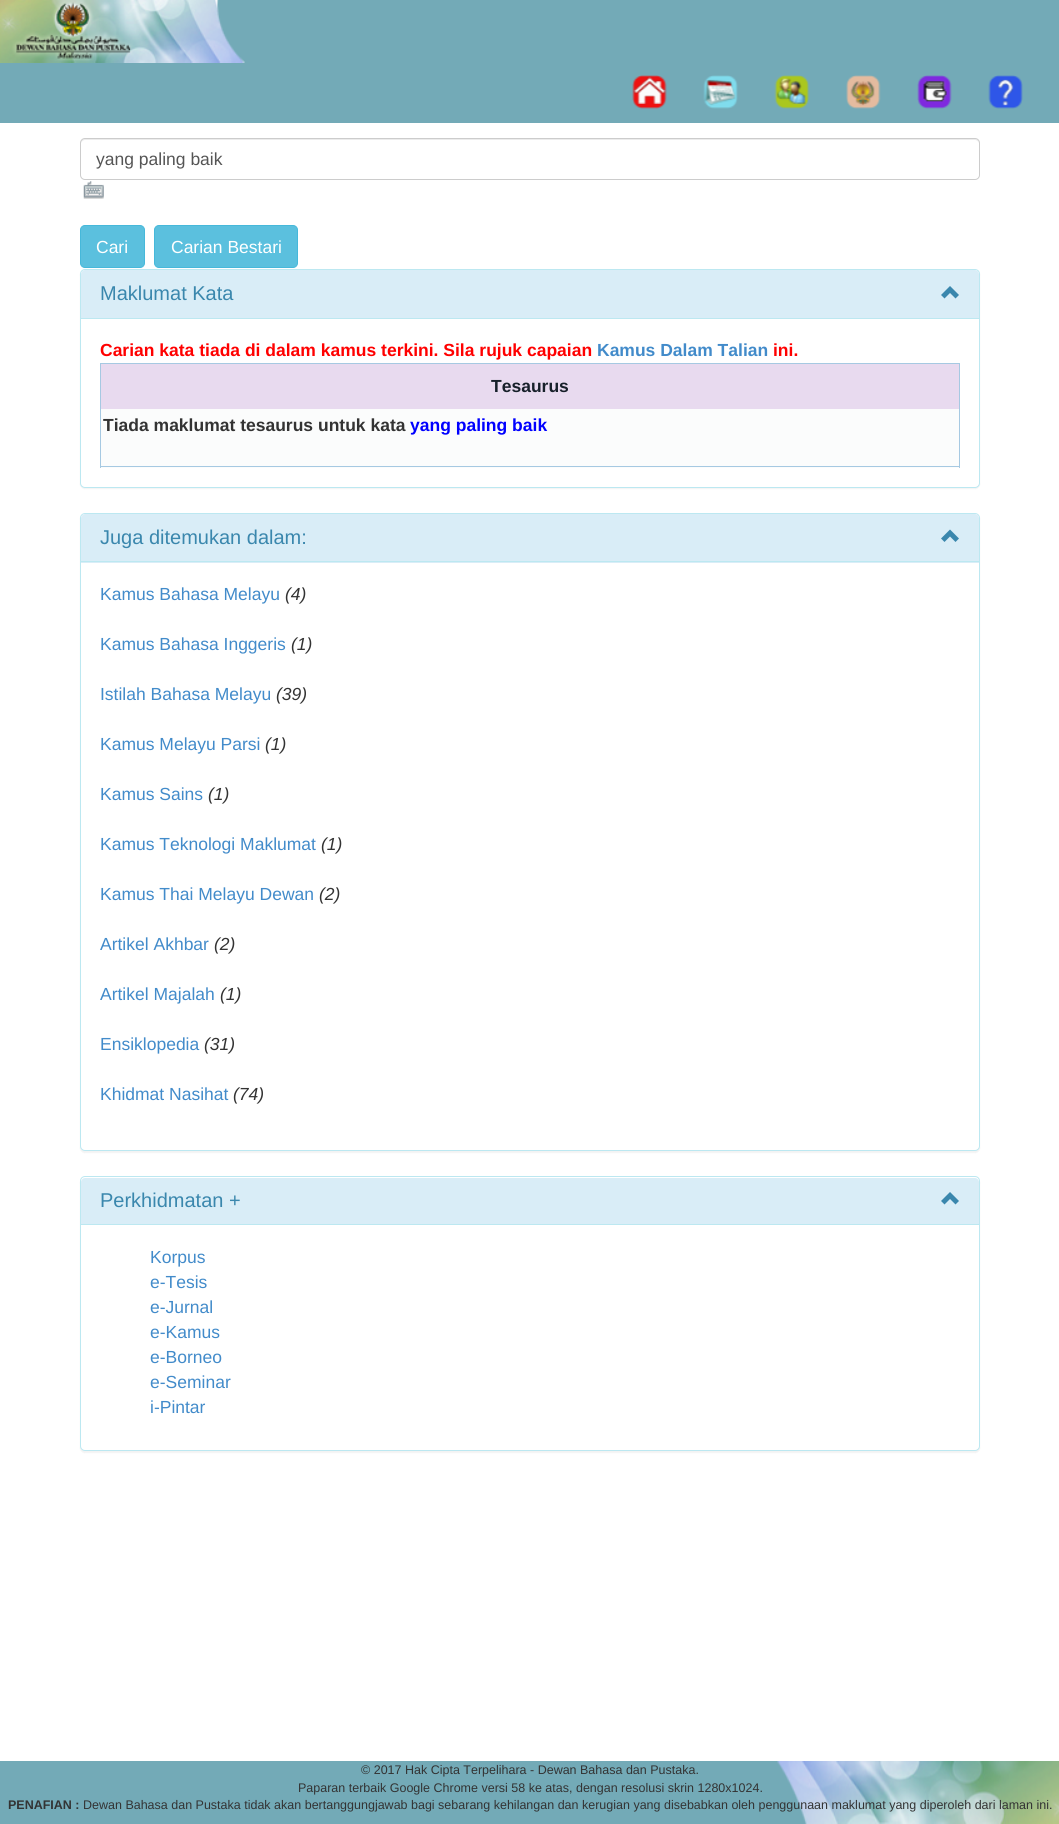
#include <cairo.h>
#include <math.h>
#include <stddef.h>

typedef struct { const char *family; double size; int italic, bold; unsigned color; } style_t;
static cairo_t *ctx;

static void ink(unsigned color) {
    cairo_set_source_rgb(ctx, (color >> 16) / 255.0, (color >> 8 & 255) / 255.0, (color & 255) / 255.0);
}

static void write(double x, double y, const char *s, const style_t *st) {
    cairo_select_font_face(ctx, st->family, st->italic ? CAIRO_FONT_SLANT_ITALIC : CAIRO_FONT_SLANT_NORMAL,
        st->bold ? CAIRO_FONT_WEIGHT_BOLD : CAIRO_FONT_WEIGHT_NORMAL);
    cairo_set_font_size(ctx, st->size);
    ink(st->color);
    cairo_move_to(ctx, x, y);
    cairo_show_text(ctx, s);
}

static void block(double x, double y, double w, double h, unsigned color) {
    ink(color);
    cairo_rectangle(ctx, x, y, w, h);
    cairo_fill(ctx);
}

static void round_path(double x, double y, double w, double h, double r) {
    cairo_new_sub_path(ctx);
    cairo_arc(ctx, x + w - r, y + h - r, r, 0, M_PI / 2);
    cairo_arc(ctx, x + r, y + h - r, r, M_PI / 2, M_PI);
    cairo_arc(ctx, x + r, y + r, r, M_PI, 1.5 * M_PI);
    cairo_arc(ctx, x + w - r, y + r, r, 1.5 * M_PI, 2 * M_PI);
    cairo_close_path(ctx);
}

static void blur_box(double x, double y, double w, double h, double r, double blur, double alpha) {
    cairo_push_group_with_content(ctx, CAIRO_CONTENT_ALPHA);
    cairo_set_operator(ctx, CAIRO_OPERATOR_SOURCE);
    for (int i = 15; i >= -15 && fmin(w, h) + blur * i / 3 > 0; i -= 2) {
        double e = blur * i / 6;
        cairo_set_source_rgba(ctx, 0, 0, 0, alpha * erfc((i - 1) / 8.5) / 2);
        round_path(x - e, y - e, w + 2 * e, h + 2 * e, fmax(0, fmin(r + e + blur * .6, fmin(w, h) / 2 + e)));
        cairo_fill(ctx);
    }
    cairo_pattern_t *soft = cairo_pop_group(ctx);
    cairo_mask(ctx, soft);
    cairo_pattern_destroy(soft);
}

static void paste(const char *path, double x, double y, double w, double h) {
    cairo_surface_t *image = cairo_image_surface_create_from_png(path);
    cairo_save(ctx);
    cairo_set_source_surface(ctx, image, x, y);
    cairo_rectangle(ctx, x, y, w, h);
    cairo_fill(ctx);
    cairo_restore(ctx);
    cairo_surface_destroy(image);
}

static const style_t s1 = {"Liberation Sans", 17.5, 0, 0, 0x555555};
static const style_t s2 = {"Liberation Sans", 17.5, 0, 0, 0xffffff};
static const style_t s3 = {"Liberation Sans", 20, 0, 0, 0x3a87ad};
static const style_t s4 = {"Liberation Sans", 17.5, 0, 1, 0xff0000};
static const style_t s5 = {"Liberation Sans", 17.5, 0, 1, 0x428bca};
static const style_t s6 = {"Liberation Sans", 17.5, 0, 1, 0x17202a};
static const style_t s7 = {"Liberation Sans", 17.5, 0, 1, 0x333333};
static const style_t s8 = {"Liberation Sans", 17.5, 0, 1, 0x0000ff};
static const style_t s9 = {"Liberation Sans", 17.5, 0, 0, 0x428bca};
static const style_t s10 = {"Liberation Sans", 17.5, 1, 0, 0x333333};
static const style_t s11 = {"Liberation Sans", 12.5, 0, 0, 0x333333};
static const style_t s12 = {"Liberation Sans", 12.5, 0, 1, 0x333333};

int main(void) {
    cairo_surface_t *surface = cairo_image_surface_create(CAIRO_FORMAT_RGB24, 1059, 1824);
    ctx = cairo_create(surface);
    cairo_font_options_t *options = cairo_font_options_create();
    cairo_font_options_set_hint_metrics(options, CAIRO_HINT_METRICS_OFF);
    cairo_font_options_set_hint_style(options, CAIRO_HINT_STYLE_NONE);
    cairo_set_font_options(ctx, options);
    cairo_set_miter_limit(ctx, 4);
    ink(0xffffff);
    cairo_paint(ctx);
    block(0, 0, 1059, 123, 0x73aab7);
    paste("pic1.png", 0, 0, 245, 63);
    paste("pic2.png", 632, 75, 35, 34);
    paste("pic3.png", 703, 75, 35, 34);
    paste("pic4.png", 774, 75, 36, 34);
    paste("pic5.png", 846, 75, 35, 34);
    paste("pic6.png", 917, 75, 35, 34);
    paste("pic7.png", 988, 75, 35, 34);
    ink(0xececec);
    cairo_new_path(ctx);
    cairo_move_to(ctx, 85, 140);
    cairo_line_to(ctx, 975, 140);
    cairo_curve_to(ctx, 977, 140, 979, 142, 979, 144);
    cairo_curve_to(ctx, 979, 141, 978, 139, 975, 139);
    cairo_line_to(ctx, 85, 139);
    cairo_curve_to(ctx, 82, 139, 81, 141, 81, 144);
    cairo_curve_to(ctx, 81, 142, 83, 140, 85, 140);
    cairo_close_path(ctx);
    cairo_fill(ctx);
    round_path(80.5, 138.5, 899, 41, 4.5);
    ink(0xcccccc);
    cairo_set_line_width(ctx, 1);
    cairo_stroke(ctx);
    write(96, 165, "yang paling baik", &s1);
    paste("pic8.png", 83, 181, 21, 18);
    ink(0x5bc0de);
    round_path(80.5, 225.5, 64, 42, 4.5);
    cairo_fill_preserve(ctx);
    ink(0x46b8da);
    cairo_stroke(ctx);
    write(96, 253, "Cari", &s2);
    ink(0x5bc0de);
    round_path(154.5, 225.5, 143, 42, 4.5);
    cairo_fill_preserve(ctx);
    ink(0x46b8da);
    cairo_stroke(ctx);
    write(171, 253, "Carian Bestari", &s2);
    ink(0x000000);
    blur_box(80, 270, 900, 219, 5, 0.5, 0.05);
    ink(0xffffff);
    round_path(80.5, 269.5, 899, 218, 4.5);
    cairo_fill_preserve(ctx);
    ink(0xbce8f1);
    cairo_stroke(ctx);
    ink(0xd9edf7);
    cairo_new_path(ctx);
    cairo_move_to(ctx, 85, 270);
    cairo_line_to(ctx, 975, 270);
    cairo_curve_to(ctx, 977, 270, 979, 272, 979, 274);
    cairo_line_to(ctx, 979, 319);
    cairo_line_to(ctx, 81, 319);
    cairo_line_to(ctx, 81, 274);
    cairo_curve_to(ctx, 81, 272, 83, 270, 85, 270);
    cairo_close_path(ctx);
    cairo_fill(ctx);
    block(81, 318, 898, 1, 0xbce8f1);
    write(100, 300, "Maklumat Kata", &s3);
    cairo_new_path(ctx);
    cairo_move_to(ctx, 955.5, 298.5);
    cairo_line_to(ctx, 959, 295);
    cairo_line_to(ctx, 950, 286);
    cairo_line_to(ctx, 941, 295);
    cairo_line_to(ctx, 944.5, 298.5);
    cairo_line_to(ctx, 950, 293);
    cairo_close_path(ctx);
    cairo_fill(ctx);
    write(100, 356, "Carian kata tiada di dalam kamus terkini. Sila rujuk capaian", &s4);
    write(597, 356, "Kamus Dalam Talian", &s5);
    write(773, 356, "ini.", &s4);
    block(100, 363, 860, 1, 0xa6c9e2);
    block(101, 409, 859, 2, 0xfbfcfc);
    block(959, 363, 1, 105, 0xa6c9e2);
    block(101, 411, 858, 57, 0xfbfcfc);
    block(100, 466, 860, 1, 0xa6c9e2);
    block(100, 363, 1, 105, 0xa6c9e2);
    block(101, 364, 858, 45, 0xe8daef);
    write(491, 392, "Tesaurus", &s6);
    write(103, 431, "Tiada maklumat tesaurus untuk kata", &s7);
    write(410, 431, "yang paling baik", &s8);
    ink(0x000000);
    blur_box(80, 514, 900, 639, 5, 0.5, 0.05);
    ink(0xffffff);
    round_path(80.5, 513.5, 899, 637, 4.5);
    cairo_fill_preserve(ctx);
    ink(0xbce8f1);
    cairo_stroke(ctx);
    ink(0xd9edf7);
    cairo_new_path(ctx);
    cairo_move_to(ctx, 85, 514);
    cairo_line_to(ctx, 975, 514);
    cairo_curve_to(ctx, 977, 514, 979, 516, 979, 518);
    cairo_line_to(ctx, 979, 563);
    cairo_line_to(ctx, 81, 563);
    cairo_line_to(ctx, 81, 518);
    cairo_curve_to(ctx, 81, 516, 83, 514, 85, 514);
    cairo_close_path(ctx);
    cairo_fill(ctx);
    block(81, 561, 898, 1, 0xbce8f1);
    write(100, 544, "Juga ditemukan dalam:", &s3);
    cairo_new_path(ctx);
    cairo_move_to(ctx, 955.5, 542);
    cairo_line_to(ctx, 959, 538.5);
    cairo_line_to(ctx, 950, 529.5);
    cairo_line_to(ctx, 941, 538.5);
    cairo_line_to(ctx, 944.5, 542);
    cairo_line_to(ctx, 950, 536.5);
    cairo_close_path(ctx);
    cairo_fill(ctx);
    write(100, 600, "Kamus Bahasa Melayu", &s9);
    write(285, 600, "(4)", &s10);
    write(100, 650, "Kamus Bahasa Inggeris", &s9);
    write(291, 650, "(1)", &s10);
    write(100, 700, "Istilah Bahasa Melayu", &s9);
    write(276, 700, "(39)", &s10);
    write(100, 750, "Kamus Melayu Parsi", &s9);
    write(265, 750, "(1)", &s10);
    write(100, 800, "Kamus Sains", &s9);
    write(208, 800, "(1)", &s10);
    write(100, 850, "Kamus Teknologi Maklumat", &s9);
    write(321, 850, "(1)", &s10);
    write(100, 900, "Kamus Thai Melayu Dewan", &s9);
    write(319, 900, "(2)", &s10);
    write(100, 950, "Artikel Akhbar", &s9);
    write(214, 950, "(2)", &s10);
    write(100, 1000, "Artikel Majalah", &s9);
    write(220, 1000, "(1)", &s10);
    write(100, 1050, "Ensiklopedia", &s9);
    write(204, 1050, "(31)", &s10);
    write(100, 1100, "Khidmat Nasihat", &s9);
    write(233, 1100, "(74)", &s10);
    ink(0x000000);
    blur_box(80, 1178, 900, 275, 5, 0.5, 0.05);
    ink(0xffffff);
    round_path(80.5, 1176.5, 899, 274, 4.5);
    cairo_fill_preserve(ctx);
    ink(0xbce8f1);
    cairo_stroke(ctx);
    ink(0xd9edf7);
    cairo_new_path(ctx);
    cairo_move_to(ctx, 85, 1178);
    cairo_line_to(ctx, 975, 1178);
    cairo_curve_to(ctx, 977, 1178, 979, 1180, 979, 1182);
    cairo_line_to(ctx, 979, 1225);
    cairo_line_to(ctx, 81, 1225);
    cairo_line_to(ctx, 81, 1182);
    cairo_curve_to(ctx, 81, 1180, 83, 1178, 85, 1178);
    cairo_close_path(ctx);
    cairo_fill(ctx);
    block(81, 1224, 898, 1, 0xbce8f1);
    write(100, 1207, "Perkhidmatan +", &s3);
    cairo_new_path(ctx);
    cairo_move_to(ctx, 955.5, 1204.5);
    cairo_line_to(ctx, 959, 1201);
    cairo_line_to(ctx, 950, 1192);
    cairo_line_to(ctx, 941, 1201);
    cairo_line_to(ctx, 944.5, 1204.5);
    cairo_line_to(ctx, 950, 1199);
    cairo_close_path(ctx);
    cairo_fill(ctx);
    write(150, 1263, "Korpus", &s9);
    write(150, 1288, "e-Tesis", &s9);
    write(150, 1313, "e-Jurnal", &s9);
    write(150, 1338, "e-Kamus", &s9);
    write(150, 1363, "e-Borneo", &s9);
    write(150, 1388, "e-Seminar", &s9);
    write(150, 1413, "i-Pintar", &s9);
    block(0, 1761, 807, 63, 0x73aab7);
    paste("pic9.png", 777, 1761, 282, 63);
    write(361, 1774, "© 2017 Hak Cipta Terpelihara - Dewan Bahasa dan Pustaka.", &s11);
    write(298, 1792, "Paparan terbaik Google Chrome versi 58 ke atas, dengan resolusi skrin 1280x1024.", &s11);
    write(8, 1809, "PENAFIAN :", &s12);
    write(83, 1809, "Dewan Bahasa dan Pustaka tidak akan bertanggungjawab bagi sebarang kehilangan dan kerugian yang disebabkan oleh penggunaan maklumat yang diperoleh dari laman ini.", &s11);
    cairo_surface_write_to_png(surface, "screenshot.png");
    cairo_font_options_destroy(options);
    cairo_destroy(ctx);
    cairo_surface_destroy(surface);
    return 0;
}
